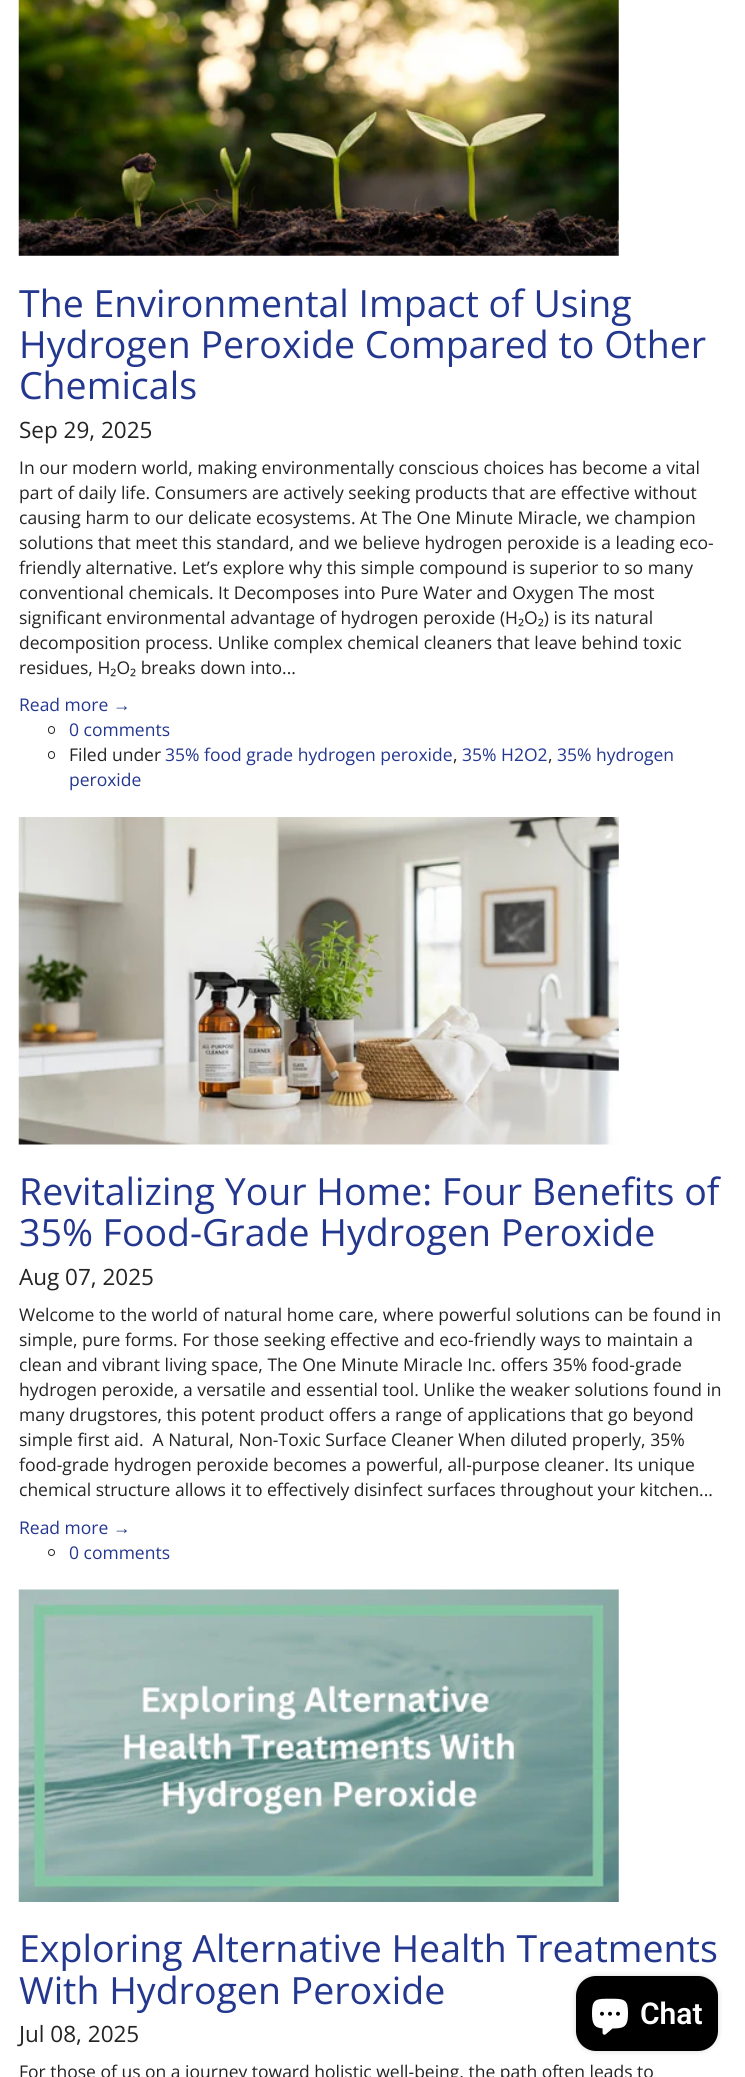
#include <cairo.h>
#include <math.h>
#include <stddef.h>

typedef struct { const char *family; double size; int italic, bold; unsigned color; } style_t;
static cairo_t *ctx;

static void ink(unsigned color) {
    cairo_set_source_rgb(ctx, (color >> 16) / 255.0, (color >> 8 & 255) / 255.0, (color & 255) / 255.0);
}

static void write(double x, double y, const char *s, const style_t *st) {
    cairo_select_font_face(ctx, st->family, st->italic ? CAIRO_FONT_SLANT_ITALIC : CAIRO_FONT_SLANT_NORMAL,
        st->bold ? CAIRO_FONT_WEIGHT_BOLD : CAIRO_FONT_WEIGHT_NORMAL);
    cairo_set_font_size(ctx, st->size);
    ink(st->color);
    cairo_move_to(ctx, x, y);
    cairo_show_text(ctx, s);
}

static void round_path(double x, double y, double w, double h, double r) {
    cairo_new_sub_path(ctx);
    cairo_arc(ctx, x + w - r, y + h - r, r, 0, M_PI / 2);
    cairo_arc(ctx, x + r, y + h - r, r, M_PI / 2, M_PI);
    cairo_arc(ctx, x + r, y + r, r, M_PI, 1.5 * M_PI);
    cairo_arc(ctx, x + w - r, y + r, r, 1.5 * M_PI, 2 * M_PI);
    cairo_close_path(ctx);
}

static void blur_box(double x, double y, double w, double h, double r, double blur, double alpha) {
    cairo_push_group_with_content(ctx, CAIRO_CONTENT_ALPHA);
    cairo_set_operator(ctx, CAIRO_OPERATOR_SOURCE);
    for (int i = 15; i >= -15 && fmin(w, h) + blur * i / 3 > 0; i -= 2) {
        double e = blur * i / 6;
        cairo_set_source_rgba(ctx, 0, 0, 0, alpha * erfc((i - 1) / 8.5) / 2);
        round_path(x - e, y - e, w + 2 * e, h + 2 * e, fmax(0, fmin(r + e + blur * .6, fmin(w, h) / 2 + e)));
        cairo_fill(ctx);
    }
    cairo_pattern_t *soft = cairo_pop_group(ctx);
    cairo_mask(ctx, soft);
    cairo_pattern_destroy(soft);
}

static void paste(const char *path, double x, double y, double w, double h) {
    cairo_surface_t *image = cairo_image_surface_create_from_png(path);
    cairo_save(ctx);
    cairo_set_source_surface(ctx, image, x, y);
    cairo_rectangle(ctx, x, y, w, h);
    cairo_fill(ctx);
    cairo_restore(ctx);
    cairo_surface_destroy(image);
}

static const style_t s1 = {"Open Sans", 37.5, 0, 0, 0x24378f};
static const style_t s2 = {"Open Sans", 22.5, 0, 0, 0x232323};
static const style_t s3 = {"Open Sans", 17.5, 0, 0, 0x232323};
static const style_t s4 = {"Open Sans", 17.5, 0, 0, 0x24378f};
static const style_t s5 = {"Liberation Sans", 17.5, 0, 0, 0x24378f};
static const style_t s6 = {"Roboto SemiBold", 30, 0, 0, 0xffffff};

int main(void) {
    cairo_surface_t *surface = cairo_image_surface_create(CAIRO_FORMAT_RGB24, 745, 2077);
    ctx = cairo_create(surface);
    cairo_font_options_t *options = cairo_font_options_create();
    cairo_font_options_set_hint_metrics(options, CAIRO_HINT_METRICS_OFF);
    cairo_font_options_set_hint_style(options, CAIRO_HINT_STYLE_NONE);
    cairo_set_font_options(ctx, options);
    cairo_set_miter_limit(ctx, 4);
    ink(0xffffff);
    cairo_paint(ctx);
    paste("pic1.png", 18, 0, 601, 256);
    write(19, 317, "The Environmental Impact of Using", &s1);
    write(19, 358, "Hydrogen Peroxide Compared to Other", &s1);
    write(19, 399, "Chemicals", &s1);
    write(19, 438, "Sep 29, 2025", &s2);
    write(19, 474, "In our modern world, making environmentally conscious choices has become a vital", &s3);
    write(19, 499, "part of daily life. Consumers are actively seeking products that are effective without", &s3);
    write(19, 524, "causing harm to our delicate ecosystems. At The One Minute Miracle, we champion", &s3);
    write(19, 549, "solutions that meet this standard, and we believe hydrogen peroxide is a leading eco-", &s3);
    write(19, 574, "friendly alternative. Let’s explore why this simple compound is superior to so many", &s3);
    write(19, 599, "conventional chemicals. It Decomposes into Pure Water and Oxygen The most", &s3);
    write(19, 624, "significant environmental advantage of hydrogen peroxide (H₂O₂) is its natural", &s3);
    write(19, 649, "decomposition process. Unlike complex chemical cleaners that leave behind toxic", &s3);
    write(19, 674, "residues, H₂O₂ breaks down into...", &s3);
    write(19, 711, "Read more", &s4);
    write(113, 711, "→", &s5);
    round_path(48.5, 726.5, 6, 7, 3);
    ink(0x232323);
    cairo_set_line_width(ctx, 1);
    cairo_stroke(ctx);
    write(69, 736, "0 comments", &s4);
    round_path(48.5, 751.5, 6, 7, 3);
    ink(0x232323);
    cairo_stroke(ctx);
    write(69, 761, "Filed under", &s3);
    write(165, 761, "35% food grade hydrogen peroxide", &s4);
    write(462, 761, "35% H2O2", &s4);
    write(557, 761, "35% hydrogen", &s4);
    write(453, 761, ",", &s3);
    write(548, 761, ",", &s3);
    write(69, 786, "peroxide", &s4);
    paste("pic2.png", 18, 817, 601, 328);
    write(19, 1205, "Revitalizing Your Home: Four Benefits of", &s1);
    write(19, 1246, "35% Food-Grade Hydrogen Peroxide", &s1);
    write(19, 1285, "Aug 07, 2025", &s2);
    write(19, 1321, "Welcome to the world of natural home care, where powerful solutions can be found in", &s3);
    write(19, 1346, "simple, pure forms. For those seeking effective and eco-friendly ways to maintain a", &s3);
    write(19, 1371, "clean and vibrant living space, The One Minute Miracle Inc. offers 35% food-grade", &s3);
    write(19, 1396, "hydrogen peroxide, a versatile and essential tool. Unlike the weaker solutions found in", &s3);
    write(19, 1421, "many drugstores, this potent product offers a range of applications that go beyond", &s3);
    write(19, 1446, "simple first aid.  A Natural, Non-Toxic Surface Cleaner When diluted properly, 35%", &s3);
    write(19, 1471, "food-grade hydrogen peroxide becomes a powerful, all-purpose cleaner. Its unique", &s3);
    write(19, 1496, "chemical structure allows it to effectively disinfect surfaces throughout your kitchen...", &s3);
    write(19, 1534, "Read more", &s4);
    write(113, 1534, "→", &s5);
    cairo_new_path(ctx);
    cairo_arc(ctx, 51.5, 1552.5, 3, 0, 2 * M_PI);
    ink(0x232323);
    cairo_stroke(ctx);
    write(69, 1559, "0 comments", &s4);
    paste("pic3.png", 18, 1589, 601, 313);
    write(19, 1962, "Exploring Alternative Health Treatments", &s1);
    write(19, 2004, "With Hydrogen Peroxide", &s1);
    write(19, 2042, "Jul 08, 2025", &s2);
    write(19, 2078, "For those of us on a journey toward holistic well-being, the path often leads to", &s3);
    ink(0x000000);
    blur_box(576, 1976, 142, 75, 20, 3, 0.15);
    ink(0x000000);
    round_path(576, 1976, 142, 75, 20);
    cairo_fill(ctx);
    paste("pic4.png", 592, 1998, 36, 37);
    write(640, 2024, "Chat", &s6);
    cairo_surface_write_to_png(surface, "screenshot.png");
    cairo_font_options_destroy(options);
    cairo_destroy(ctx);
    cairo_surface_destroy(surface);
    return 0;
}
